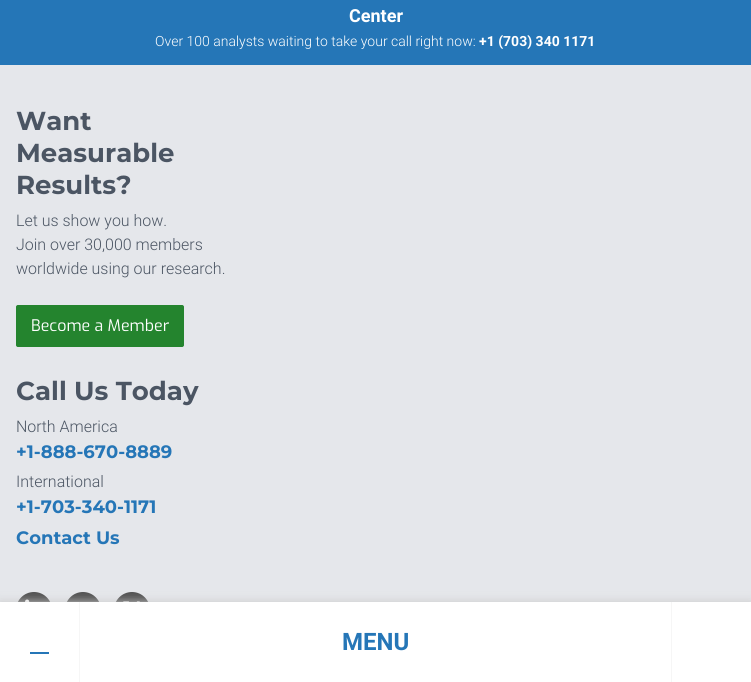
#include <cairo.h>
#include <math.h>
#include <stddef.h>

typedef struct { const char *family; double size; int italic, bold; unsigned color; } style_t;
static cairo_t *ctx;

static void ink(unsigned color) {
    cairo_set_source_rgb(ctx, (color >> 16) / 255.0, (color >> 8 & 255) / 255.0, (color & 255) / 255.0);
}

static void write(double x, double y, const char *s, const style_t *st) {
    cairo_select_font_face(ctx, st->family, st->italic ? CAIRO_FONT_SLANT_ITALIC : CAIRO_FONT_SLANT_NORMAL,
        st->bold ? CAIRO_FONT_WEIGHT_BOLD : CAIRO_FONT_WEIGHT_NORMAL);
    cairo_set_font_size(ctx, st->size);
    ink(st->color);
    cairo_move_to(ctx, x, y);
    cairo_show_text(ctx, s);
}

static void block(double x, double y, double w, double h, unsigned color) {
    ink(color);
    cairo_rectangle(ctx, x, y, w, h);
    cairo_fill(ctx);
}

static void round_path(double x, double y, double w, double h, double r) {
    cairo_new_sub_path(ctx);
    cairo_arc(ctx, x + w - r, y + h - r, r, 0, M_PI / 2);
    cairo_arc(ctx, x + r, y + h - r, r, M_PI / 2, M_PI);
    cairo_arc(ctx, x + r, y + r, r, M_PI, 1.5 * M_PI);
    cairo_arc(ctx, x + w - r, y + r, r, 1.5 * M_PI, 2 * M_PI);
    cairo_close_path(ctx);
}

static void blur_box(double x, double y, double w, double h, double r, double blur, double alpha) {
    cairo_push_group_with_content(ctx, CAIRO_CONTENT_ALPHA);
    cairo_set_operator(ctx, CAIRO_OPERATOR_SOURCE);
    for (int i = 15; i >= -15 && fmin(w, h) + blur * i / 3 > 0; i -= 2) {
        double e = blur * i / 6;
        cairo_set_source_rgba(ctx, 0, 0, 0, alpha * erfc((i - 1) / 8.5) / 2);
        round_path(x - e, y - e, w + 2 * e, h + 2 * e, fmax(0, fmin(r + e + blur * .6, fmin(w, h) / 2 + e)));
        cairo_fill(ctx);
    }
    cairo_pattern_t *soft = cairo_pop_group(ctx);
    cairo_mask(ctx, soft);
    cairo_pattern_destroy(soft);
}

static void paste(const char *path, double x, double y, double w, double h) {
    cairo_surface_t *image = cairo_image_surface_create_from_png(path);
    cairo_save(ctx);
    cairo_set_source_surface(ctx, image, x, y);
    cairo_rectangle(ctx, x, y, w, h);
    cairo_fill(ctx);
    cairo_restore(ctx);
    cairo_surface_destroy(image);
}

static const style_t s1 = {"Roboto", 18, 0, 1, 0xffffff};
static const style_t s2 = {"Roboto Light", 14, 0, 0, 0xffffff};
static const style_t s3 = {"Roboto", 14, 0, 1, 0xffffff};
static const style_t s4 = {"Montserrat Thin", 26, 0, 0, 0x4b5563};
static const style_t s5 = {"Roboto Light", 16, 0, 0, 0x4b5563};
static const style_t s6 = {"Exo", 16, 0, 0, 0xffffff};
static const style_t s7 = {"Montserrat Thin", 18, 0, 0, 0x2576b7};
static const style_t s8 = {"Roboto", 24, 0, 1, 0x2576b7};

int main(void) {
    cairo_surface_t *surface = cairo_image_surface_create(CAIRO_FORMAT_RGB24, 751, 682);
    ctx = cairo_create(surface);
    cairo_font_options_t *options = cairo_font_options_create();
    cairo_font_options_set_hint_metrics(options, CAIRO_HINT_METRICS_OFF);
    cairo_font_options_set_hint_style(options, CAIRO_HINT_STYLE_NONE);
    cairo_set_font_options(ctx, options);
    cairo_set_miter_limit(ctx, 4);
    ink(0xe5e7eb);
    cairo_paint(ctx);
    block(0, 0, 751, 65, 0x2576b7);
    write(349, 22, "Center", &s1);
    write(155, 46, "Over 100 analysts waiting to take your call right now:", &s2);
    write(479, 46, "+1 (703) 340 1171", &s3);
    write(16, 130, "Want", &s4);
    write(16, 162, "Measurable", &s4);
    write(16, 194, "Results?", &s4);
    write(16, 226, "Let us show you how.", &s5);
    write(16, 250, "Join over 30,000 members", &s5);
    write(16, 274, "worldwide using our research.", &s5);
    ink(0x24842e);
    round_path(16.5, 305.5, 167, 41, 1.5);
    cairo_fill_preserve(ctx);
    cairo_set_line_width(ctx, 1);
    cairo_stroke(ctx);
    write(31, 331, "Become a Member", &s6);
    write(16, 400, "Call Us Today", &s4);
    write(16, 432, "North America", &s5);
    write(16, 458, "+1-888-670-8889", &s7);
    write(16, 487, "International", &s5);
    write(16, 513, "+1-703-340-1171", &s7);
    write(16, 544, "Contact Us", &s7);
    ink(0x505050);
    cairo_new_path(ctx);
    cairo_arc(ctx, 34, 610, 18, 0, 2 * M_PI);
    cairo_fill(ctx);
    paste("pic1.png", 25, 599, 5, 3);
    cairo_arc(ctx, 83, 610, 18, 0, 2 * M_PI);
    cairo_fill(ctx);
    cairo_arc(ctx, 132, 610, 18, 0, 2 * M_PI);
    cairo_fill(ctx);
    paste("pic2.png", 123, 601, 17, 1);
    ink(0xcccccc);
    blur_box(0, 602, 751, 80, 0, 5, 1);
    block(0, 602, 751, 80, 0xffffff);
    block(79, 602, 1, 80, 0xf6f6f6);
    block(30, 652, 19, 2, 0x2576b7);
    write(342, 650, "MENU", &s8);
    block(671, 602, 1, 80, 0xf6f6f6);
    cairo_surface_write_to_png(surface, "screenshot.png");
    cairo_font_options_destroy(options);
    cairo_destroy(ctx);
    cairo_surface_destroy(surface);
    return 0;
}
